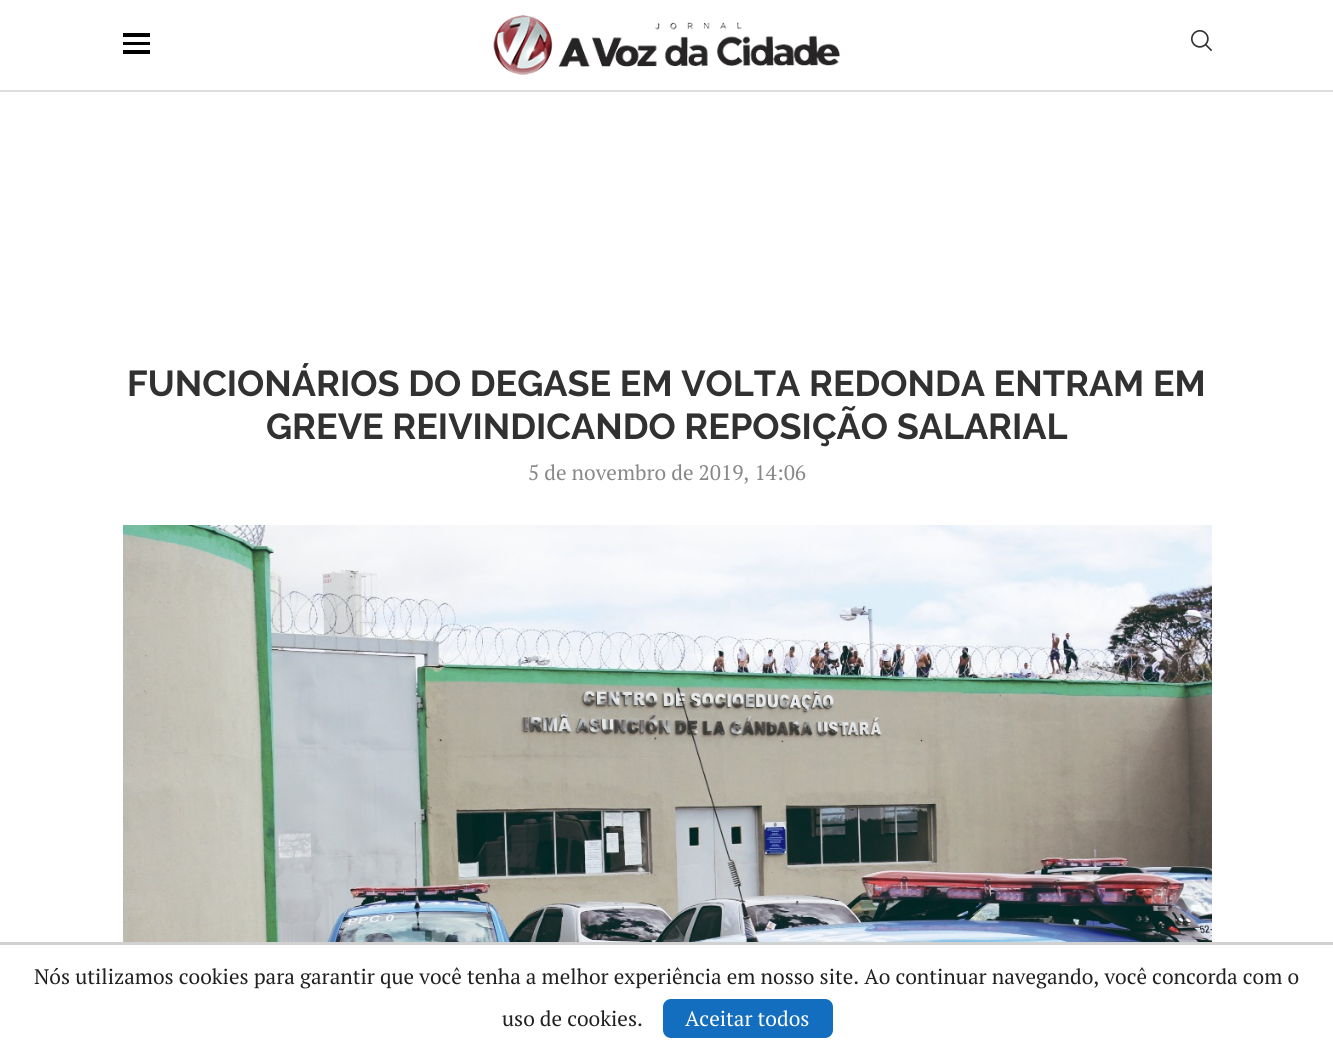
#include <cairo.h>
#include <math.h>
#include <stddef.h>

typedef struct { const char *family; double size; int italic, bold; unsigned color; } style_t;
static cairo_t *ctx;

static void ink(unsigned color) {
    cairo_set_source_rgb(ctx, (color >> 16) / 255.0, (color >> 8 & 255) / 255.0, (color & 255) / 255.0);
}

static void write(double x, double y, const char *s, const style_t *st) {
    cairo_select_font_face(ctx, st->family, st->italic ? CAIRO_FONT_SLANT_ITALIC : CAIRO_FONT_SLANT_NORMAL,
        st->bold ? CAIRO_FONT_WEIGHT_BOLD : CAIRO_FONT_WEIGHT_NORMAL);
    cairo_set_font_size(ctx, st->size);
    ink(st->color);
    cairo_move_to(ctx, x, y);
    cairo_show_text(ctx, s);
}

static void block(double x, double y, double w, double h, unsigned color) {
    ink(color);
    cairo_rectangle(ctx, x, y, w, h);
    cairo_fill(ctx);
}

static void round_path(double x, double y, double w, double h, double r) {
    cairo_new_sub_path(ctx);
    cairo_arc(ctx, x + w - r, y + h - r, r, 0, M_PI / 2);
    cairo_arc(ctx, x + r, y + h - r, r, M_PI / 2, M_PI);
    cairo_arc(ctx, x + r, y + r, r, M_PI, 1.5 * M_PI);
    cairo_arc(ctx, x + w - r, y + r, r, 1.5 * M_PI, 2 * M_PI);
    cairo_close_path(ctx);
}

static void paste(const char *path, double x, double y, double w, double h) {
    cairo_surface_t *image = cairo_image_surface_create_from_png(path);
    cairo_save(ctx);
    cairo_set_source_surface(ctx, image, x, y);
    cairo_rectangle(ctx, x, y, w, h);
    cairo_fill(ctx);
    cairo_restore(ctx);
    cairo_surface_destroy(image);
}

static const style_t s1 = {"Raleway", 36, 0, 1, 0x313131};
static const style_t s2 = {"PT Serif", 21, 0, 0, 0x888888};
static const style_t s3 = {"PT Serif", 21, 0, 0, 0x212121};
static const style_t s4 = {"PT Serif", 21, 0, 0, 0xffffff};

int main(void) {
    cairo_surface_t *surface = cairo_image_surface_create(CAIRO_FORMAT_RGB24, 1333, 1050);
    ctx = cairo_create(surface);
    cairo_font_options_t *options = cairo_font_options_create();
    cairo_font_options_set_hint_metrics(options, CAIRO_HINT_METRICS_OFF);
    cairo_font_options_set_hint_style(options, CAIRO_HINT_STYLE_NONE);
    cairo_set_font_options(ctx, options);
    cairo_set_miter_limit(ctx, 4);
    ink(0xffffff);
    cairo_paint(ctx);
    block(0, 90, 1333, 2, 0xdedede);
    block(123, 33, 27, 4, 0x000000);
    block(123, 42, 27, 3, 0x000000);
    block(123, 50, 27, 4, 0x000000);
    paste("pic1.png", 493, 15, 347, 60);
    paste("pic2.png", 1191, 30, 21, 21);
    write(127, 396, "FUNCIONÁRIOS DO DEGASE EM VOLTA REDONDA ENTRAM EM", &s1);
    write(266, 439, "GREVE REIVINDICANDO REPOSIÇÃO SALARIAL", &s1);
    write(528, 480, "5 de novembro de 2019, 14:06", &s2);
    paste("pic3.png", 123, 525, 1089, 417);
    block(0, 942, 1333, 3, 0xd1d1d1);
    write(34, 984, "Nós utilizamos cookies para garantir que você tenha a melhor experiência em nosso site. Ao continuar navegando, você concorda com o", &s3);
    write(502, 1026, "uso de cookies.", &s3);
    ink(0x136ebf);
    round_path(663, 999, 170, 39, 8);
    cairo_fill(ctx);
    write(685, 1026, "Aceitar todos", &s4);
    cairo_surface_write_to_png(surface, "screenshot.png");
    cairo_font_options_destroy(options);
    cairo_destroy(ctx);
    cairo_surface_destroy(surface);
    return 0;
}
